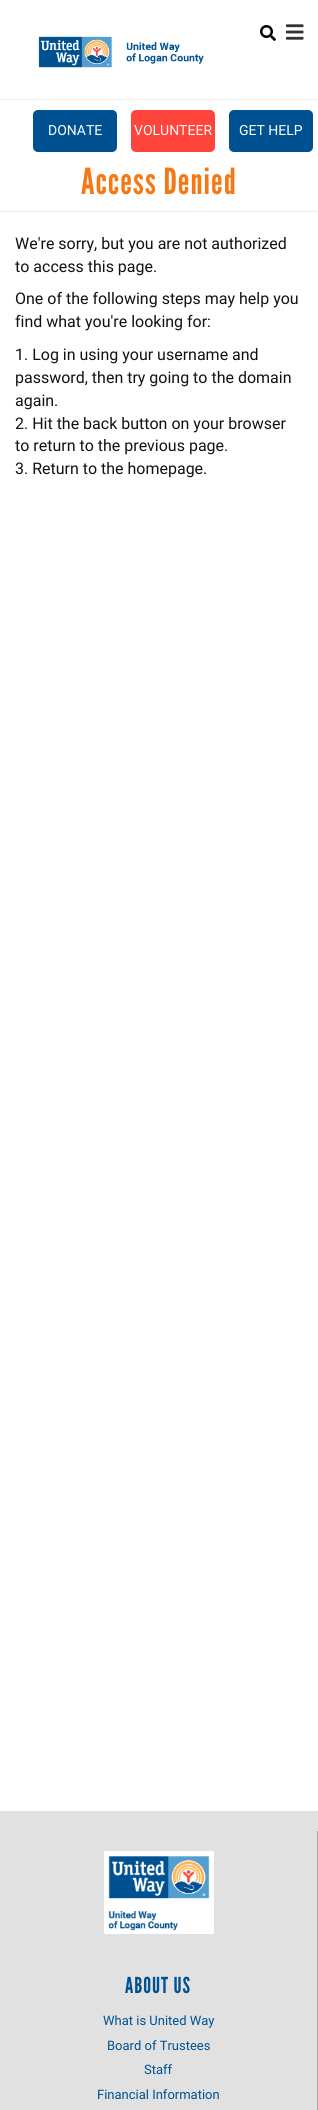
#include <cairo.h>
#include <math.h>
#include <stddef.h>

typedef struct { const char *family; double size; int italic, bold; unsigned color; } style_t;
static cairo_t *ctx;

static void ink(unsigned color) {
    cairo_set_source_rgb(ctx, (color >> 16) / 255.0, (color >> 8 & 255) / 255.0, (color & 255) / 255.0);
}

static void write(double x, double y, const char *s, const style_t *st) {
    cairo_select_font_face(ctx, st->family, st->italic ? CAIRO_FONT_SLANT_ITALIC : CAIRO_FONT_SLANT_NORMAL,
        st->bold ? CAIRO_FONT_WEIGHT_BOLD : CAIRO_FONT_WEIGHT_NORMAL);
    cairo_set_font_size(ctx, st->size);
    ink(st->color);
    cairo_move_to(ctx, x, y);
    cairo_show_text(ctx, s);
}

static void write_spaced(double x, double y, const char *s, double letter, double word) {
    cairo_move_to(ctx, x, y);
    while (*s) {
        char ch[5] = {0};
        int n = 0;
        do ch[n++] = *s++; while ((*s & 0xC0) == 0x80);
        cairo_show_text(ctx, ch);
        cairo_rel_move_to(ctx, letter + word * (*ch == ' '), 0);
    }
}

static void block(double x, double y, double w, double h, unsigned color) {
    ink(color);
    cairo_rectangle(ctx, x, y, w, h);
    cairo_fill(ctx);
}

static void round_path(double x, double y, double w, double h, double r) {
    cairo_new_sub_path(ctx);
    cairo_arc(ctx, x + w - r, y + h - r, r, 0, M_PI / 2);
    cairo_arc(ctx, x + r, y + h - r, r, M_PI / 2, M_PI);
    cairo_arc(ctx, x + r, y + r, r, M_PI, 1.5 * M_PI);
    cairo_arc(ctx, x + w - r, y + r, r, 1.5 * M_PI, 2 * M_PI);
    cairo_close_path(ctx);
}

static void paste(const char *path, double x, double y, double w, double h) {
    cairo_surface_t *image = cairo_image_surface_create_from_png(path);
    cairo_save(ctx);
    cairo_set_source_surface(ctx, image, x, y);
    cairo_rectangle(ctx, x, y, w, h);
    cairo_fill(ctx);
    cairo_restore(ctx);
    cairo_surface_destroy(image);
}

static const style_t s1 = {"Roboto", 14, 0, 0, 0xffffff};
static const style_t s2 = {"Roboto", 16, 0, 0, 0x111111};
static const style_t s3 = {"Roboto", 13, 0, 0, 0x005191};

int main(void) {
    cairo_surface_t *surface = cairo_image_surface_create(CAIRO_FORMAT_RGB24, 318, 2110);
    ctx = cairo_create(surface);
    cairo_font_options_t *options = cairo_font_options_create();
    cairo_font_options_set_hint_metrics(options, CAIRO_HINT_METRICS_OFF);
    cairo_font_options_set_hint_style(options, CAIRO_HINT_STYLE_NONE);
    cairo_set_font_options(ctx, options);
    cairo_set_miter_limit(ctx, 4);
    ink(0xffffff);
    cairo_paint(ctx);
    block(0, 99, 318, 1, 0xefefef);
    paste("pic1.png", 260, 25, 16, 16);
    paste("pic2.png", 286, 24, 18, 16);
    paste("pic3.png", 38, 36, 166, 32);
    ink(0x005191);
    round_path(33, 110, 84, 42, 5);
    cairo_fill(ctx);
    write(48, 135, "DONATE", &s1);
    ink(0xff443b);
    round_path(131, 110, 84, 42, 5);
    cairo_fill(ctx);
    write(134, 135, "VOLUNTEER", &s1);
    ink(0x005191);
    round_path(229, 110, 84, 42, 5);
    cairo_fill(ctx);
    write(239, 135, "GET HELP", &s1);
    block(0, 211, 318, 1, 0xeeeeee);
    cairo_select_font_face(ctx, "League Gothic", CAIRO_FONT_SLANT_NORMAL, CAIRO_FONT_WEIGHT_NORMAL);
    cairo_set_font_size(ctx, 36);
    ink(0xf57814);
    write_spaced(81, 194, "Access Denied", 1, 0);
    write(15, 249, "We're sorry, but you are not authorized", &s2);
    write(15, 272, "to access this page.", &s2);
    write(15, 304, "One of the following steps may help you", &s2);
    write(15, 327, "find what you're looking for:", &s2);
    write(15, 360, "1. Log in using your username and", &s2);
    write(15, 383, "password, then try going to the domain", &s2);
    write(15, 406, "again.", &s2);
    write(15, 429, "2. Hit the back button on your browser", &s2);
    write(15, 451, "to return to the previous page.", &s2);
    write(15, 474, "3. Return to the homepage.", &s2);
    block(0, 1811, 318, 299, 0xe1e1e1);
    block(317, 1831, 1, 279, 0xacacac);
    paste("pic4.png", 104, 1851, 110, 83);
    cairo_select_font_face(ctx, "League Gothic", CAIRO_FONT_SLANT_NORMAL, CAIRO_FONT_WEIGHT_NORMAL);
    cairo_set_font_size(ctx, 22);
    ink(0x005191);
    write_spaced(125, 1993, "ABOUT US", 1, 0);
    write(103, 2025, "What is United Way", &s3);
    write(107, 2050, "Board of Trustees", &s3);
    write(144, 2074, "Staff", &s3);
    write(97, 2099, "Financial Information", &s3);
    cairo_surface_write_to_png(surface, "screenshot.png");
    cairo_font_options_destroy(options);
    cairo_destroy(ctx);
    cairo_surface_destroy(surface);
    return 0;
}
